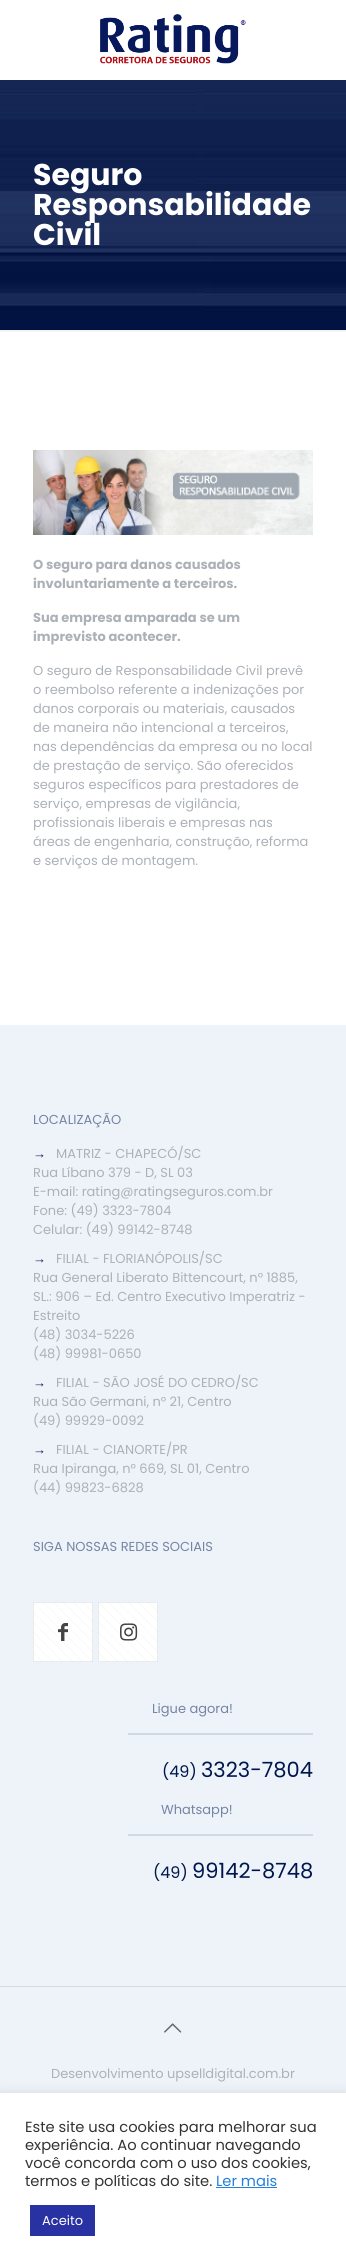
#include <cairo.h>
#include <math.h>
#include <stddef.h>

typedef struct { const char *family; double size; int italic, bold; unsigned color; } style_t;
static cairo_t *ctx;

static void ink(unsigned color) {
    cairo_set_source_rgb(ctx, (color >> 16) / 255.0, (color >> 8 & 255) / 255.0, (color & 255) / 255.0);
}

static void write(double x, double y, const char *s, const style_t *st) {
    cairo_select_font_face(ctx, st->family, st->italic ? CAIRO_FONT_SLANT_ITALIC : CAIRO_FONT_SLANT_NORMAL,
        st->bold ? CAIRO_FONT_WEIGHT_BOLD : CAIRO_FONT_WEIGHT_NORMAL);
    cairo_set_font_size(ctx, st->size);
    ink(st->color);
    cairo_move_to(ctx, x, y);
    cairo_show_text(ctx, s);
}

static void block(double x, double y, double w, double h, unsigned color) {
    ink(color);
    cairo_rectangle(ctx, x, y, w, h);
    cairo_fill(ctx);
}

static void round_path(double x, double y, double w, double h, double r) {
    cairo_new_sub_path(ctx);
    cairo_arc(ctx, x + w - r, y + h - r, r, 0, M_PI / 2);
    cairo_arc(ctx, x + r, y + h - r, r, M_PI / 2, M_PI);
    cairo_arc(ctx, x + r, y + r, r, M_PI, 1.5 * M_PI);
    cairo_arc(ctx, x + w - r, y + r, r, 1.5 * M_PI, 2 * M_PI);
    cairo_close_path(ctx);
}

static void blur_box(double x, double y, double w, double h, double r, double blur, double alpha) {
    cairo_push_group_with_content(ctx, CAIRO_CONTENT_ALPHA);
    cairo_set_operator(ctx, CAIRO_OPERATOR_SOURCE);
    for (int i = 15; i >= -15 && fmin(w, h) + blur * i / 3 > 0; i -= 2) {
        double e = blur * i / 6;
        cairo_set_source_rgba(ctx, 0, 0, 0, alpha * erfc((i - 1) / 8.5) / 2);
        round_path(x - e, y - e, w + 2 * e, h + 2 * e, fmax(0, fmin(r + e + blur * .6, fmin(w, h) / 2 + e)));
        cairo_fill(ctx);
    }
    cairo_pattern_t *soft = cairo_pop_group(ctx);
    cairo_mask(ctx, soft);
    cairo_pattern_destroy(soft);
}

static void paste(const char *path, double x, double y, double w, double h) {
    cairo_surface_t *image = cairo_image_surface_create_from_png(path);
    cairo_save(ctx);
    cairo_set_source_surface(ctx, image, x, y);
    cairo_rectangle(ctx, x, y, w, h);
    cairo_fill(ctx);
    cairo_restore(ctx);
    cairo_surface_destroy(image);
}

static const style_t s1 = {"Poppins", 30, 0, 1, 0xffffff};
static const style_t s2 = {"Poppins", 13, 0, 1, 0xacb1b7};
static const style_t s3 = {"Poppins", 13, 0, 0, 0xacb1b7};
static const style_t s4 = {"Poppins", 13, 0, 0, 0x7684a3};
static const style_t s5 = {"Liberation Sans", 13, 0, 0, 0x07185c};
static const style_t s6 = {"Poppins", 16, 0, 0, 0x00164d};
static const style_t s7 = {"Poppins", 21, 0, 0, 0x00164d};
static const style_t s8 = {"Poppins", 14.7, 0, 0, 0x333333};
static const style_t s9 = {"Poppins", 14.7, 0, 0, 0x2380dd};
static const style_t s10 = {"Poppins", 13, 0, 0, 0xffffff};

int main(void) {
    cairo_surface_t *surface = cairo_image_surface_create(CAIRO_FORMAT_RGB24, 346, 2266);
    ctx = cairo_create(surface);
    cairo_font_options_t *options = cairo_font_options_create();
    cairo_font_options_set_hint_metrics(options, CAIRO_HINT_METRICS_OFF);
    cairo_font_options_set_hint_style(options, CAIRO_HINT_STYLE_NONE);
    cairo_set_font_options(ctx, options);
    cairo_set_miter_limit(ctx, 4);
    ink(0xffffff);
    cairo_paint(ctx);
    paste("pic1.png", 0, 80, 346, 250);
    paste("pic2.png", 100, 14, 146, 50);
    write(33, 185, "Seguro", &s1);
    write(33, 215, "Responsabilidade", &s1);
    write(33, 245, "Civil", &s1);
    paste("pic3.png", 0, 330, 346, 2);
    paste("pic4.png", 33, 450, 280, 85);
    write(33, 569, "O seguro para danos causados", &s2);
    write(33, 588, "involuntariamente a terceiros.", &s2);
    write(33, 622, "Sua empresa amparada se um", &s2);
    write(33, 641, "imprevisto acontecer.", &s2);
    write(33, 675, "O seguro de Responsabilidade Civil prevê", &s3);
    write(33, 694, "o reembolso referente a indenizações por", &s3);
    write(33, 713, "danos corporais ou materiais, causados", &s3);
    write(33, 732, "de maneira não intencional a terceiros,", &s3);
    write(33, 751, "nas dependências da empresa ou no local", &s3);
    write(33, 770, "de prestação de serviço. São oferecidos", &s3);
    write(33, 789, "seguros específicos para prestadores de", &s3);
    write(33, 808, "serviço, empresas de vigilância,", &s3);
    write(33, 827, "profissionais liberais e empresas nas", &s3);
    write(33, 846, "áreas de engenharia, construção, reforma", &s3);
    write(33, 865, "e serviços de montagem.", &s3);
    block(0, 1025, 346, 1068, 0xedf3f9);
    write(33, 1124, "LOCALIZAÇÃO", &s4);
    write(33, 1158, "→", &s5);
    write(56, 1158, "MATRIZ - CHAPECÓ/SC", &s3);
    write(33, 1177, "Rua Líbano 379 - D, SL 03", &s3);
    write(33, 1196, "E-mail: rating@ratingseguros.com.br", &s3);
    write(33, 1215, "Fone: (49) 3323-7804", &s3);
    write(33, 1234, "Celular: (49) 99142-8748", &s3);
    write(33, 1263, "→", &s5);
    write(56, 1263, "FILIAL - FLORIANÓPOLIS/SC", &s3);
    write(33, 1282, "Rua General Liberato Bittencourt, n° 1885,", &s3);
    write(33, 1301, "SL.: 906 – Ed. Centro Executivo Imperatriz -", &s3);
    write(33, 1320, "Estreito", &s3);
    write(33, 1339, "(48) 3034-5226", &s3);
    write(33, 1358, "(48) 99981-0650", &s3);
    write(33, 1387, "→", &s5);
    write(56, 1387, "FILIAL - SÃO JOSÉ DO CEDRO/SC", &s3);
    write(33, 1406, "Rua São Germani, n° 21, Centro", &s3);
    write(33, 1425, "(49) 99929-0092", &s3);
    write(33, 1454, "→", &s5);
    write(56, 1454, "FILIAL - CIANORTE/PR", &s3);
    write(33, 1473, "Rua Ipiranga, n° 669, SL 01, Centro", &s3);
    write(33, 1492, "(44) 99823-6828", &s3);
    write(33, 1551, "SIGA NOSSAS REDES SOCIAIS", &s4);
    block(33, 1602, 60, 60, 0xffffff);
    paste("pic5.png", 33, 1602, 60, 60);
    cairo_rectangle(ctx, 33.5, 1602.5, 59, 59);
    cairo_set_source_rgba(ctx, 0, 0, 0, 0.08);
    cairo_set_line_width(ctx, 1);
    cairo_stroke(ctx);
    paste("pic6.png", 58, 1623, 10, 18);
    block(98, 1602, 60, 60, 0xffffff);
    paste("pic5.png", 98, 1602, 60, 60);
    cairo_rectangle(ctx, 98.5, 1602.5, 59, 59);
    cairo_set_source_rgba(ctx, 0, 0, 0, 0.08);
    cairo_stroke(ctx);
    paste("pic7.png", 120, 1623, 18, 18);
    write(152, 1713, "Ligue agora!", &s4);
    block(128, 1733, 185, 2, 0xcfdae5);
    write(162, 1777, "(49)", &s6);
    write(201, 1777, "3323-7804", &s7);
    write(161, 1814, "Whatsapp!", &s4);
    block(128, 1834, 185, 2, 0xcfdae5);
    write(153, 1878, "(49)", &s6);
    write(192, 1878, "99142-8748", &s7);
    block(0, 1986, 346, 1, 0xd5dbe0);
    paste("pic8.png", 164, 2023, 18, 10);
    write(51, 2078, "Desenvolvimento upselldigital.com.br", &s3);
    ink(0xacabab);
    blur_box(0, 2092, 346, 173, 0, 5, 0.3);
    block(0, 2093, 346, 173, 0xffffff);
    write(25, 2132, "Este site usa cookies para melhorar sua", &s8);
    write(25, 2150, "experiência. Ao continuar navegando", &s8);
    write(25, 2168, "você concorda com o uso dos cookies,", &s8);
    write(25, 2186, "termos e políticas do site.", &s8);
    write(216, 2186, "Ler mais", &s9);
    block(216, 2187, 61, 1, 0x2380dd);
    block(30, 2205, 65, 31, 0x2832a3);
    write(42, 2225, "Aceito", &s10);
    cairo_surface_write_to_png(surface, "screenshot.png");
    cairo_font_options_destroy(options);
    cairo_destroy(ctx);
    cairo_surface_destroy(surface);
    return 0;
}
